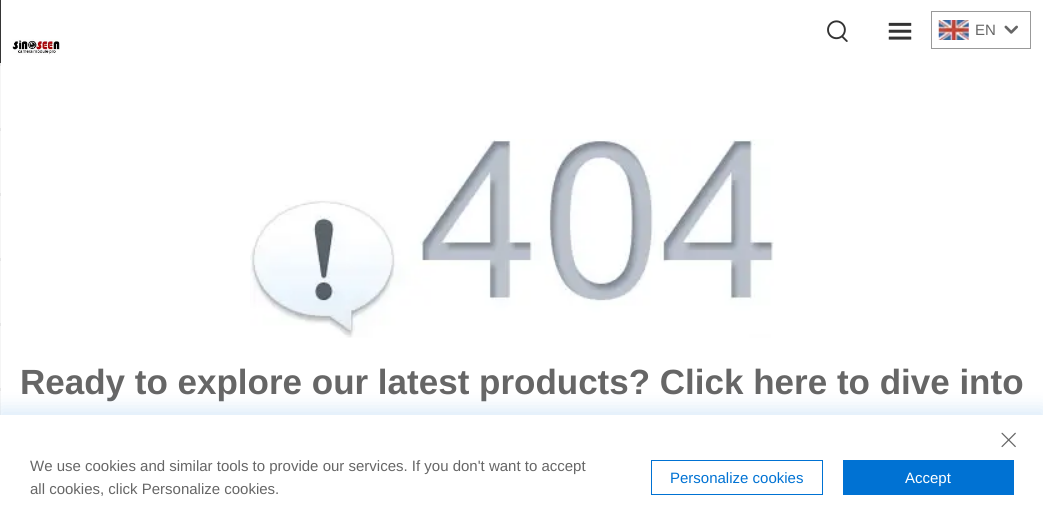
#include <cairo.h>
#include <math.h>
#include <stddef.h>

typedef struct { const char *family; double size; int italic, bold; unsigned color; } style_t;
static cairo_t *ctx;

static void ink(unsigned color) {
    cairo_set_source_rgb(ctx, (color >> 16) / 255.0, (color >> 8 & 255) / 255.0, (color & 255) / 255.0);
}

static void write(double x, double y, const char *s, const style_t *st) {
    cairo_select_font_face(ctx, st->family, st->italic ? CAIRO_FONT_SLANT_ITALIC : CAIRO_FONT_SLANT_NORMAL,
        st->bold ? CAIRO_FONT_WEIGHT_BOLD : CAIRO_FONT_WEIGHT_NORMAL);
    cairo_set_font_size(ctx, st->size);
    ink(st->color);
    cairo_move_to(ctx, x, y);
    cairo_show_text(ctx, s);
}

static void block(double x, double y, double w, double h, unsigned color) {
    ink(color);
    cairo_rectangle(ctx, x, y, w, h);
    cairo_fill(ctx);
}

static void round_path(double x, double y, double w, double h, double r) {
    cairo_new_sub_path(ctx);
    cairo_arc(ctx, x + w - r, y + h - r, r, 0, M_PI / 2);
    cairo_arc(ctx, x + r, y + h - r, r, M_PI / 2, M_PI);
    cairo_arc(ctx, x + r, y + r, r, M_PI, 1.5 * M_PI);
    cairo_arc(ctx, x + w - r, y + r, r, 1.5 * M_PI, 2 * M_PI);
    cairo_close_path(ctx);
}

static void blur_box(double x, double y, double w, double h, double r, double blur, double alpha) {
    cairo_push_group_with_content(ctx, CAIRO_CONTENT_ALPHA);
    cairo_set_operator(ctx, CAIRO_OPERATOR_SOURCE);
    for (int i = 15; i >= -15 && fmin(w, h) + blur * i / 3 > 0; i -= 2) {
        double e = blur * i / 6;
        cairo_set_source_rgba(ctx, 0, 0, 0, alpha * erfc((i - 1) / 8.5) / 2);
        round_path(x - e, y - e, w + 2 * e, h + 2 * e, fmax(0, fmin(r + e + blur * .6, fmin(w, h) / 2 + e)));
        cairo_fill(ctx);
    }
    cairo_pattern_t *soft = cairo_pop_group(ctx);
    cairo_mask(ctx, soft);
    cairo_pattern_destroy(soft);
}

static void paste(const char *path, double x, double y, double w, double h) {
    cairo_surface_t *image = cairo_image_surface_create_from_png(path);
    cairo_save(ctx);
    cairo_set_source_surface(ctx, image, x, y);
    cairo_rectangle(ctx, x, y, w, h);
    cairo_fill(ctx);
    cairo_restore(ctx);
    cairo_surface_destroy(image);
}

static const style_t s1 = {"Liberation Sans", 15, 0, 0, 0x666666};
static const style_t s2 = {"Liberation Sans", 35, 0, 1, 0x666666};
static const style_t s3 = {"Liberation Sans", 15, 0, 0, 0x0072d3};
static const style_t s4 = {"Liberation Sans", 15, 0, 0, 0xffffff};

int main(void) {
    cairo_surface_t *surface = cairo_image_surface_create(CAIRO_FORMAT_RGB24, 1043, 519);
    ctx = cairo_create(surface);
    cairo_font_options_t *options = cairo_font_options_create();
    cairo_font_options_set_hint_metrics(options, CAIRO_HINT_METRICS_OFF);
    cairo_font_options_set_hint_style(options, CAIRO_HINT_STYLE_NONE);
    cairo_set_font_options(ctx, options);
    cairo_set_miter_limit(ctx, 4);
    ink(0xffffff);
    cairo_paint(ctx);
    block(0, 66, 1, 349, 0xf5f5f5);
    block(0, 0, 1, 63, 0x353535);
    block(0, 63, 1, 3, 0xe5e5e5);
    block(0, 128, 1, 3, 0xe5e5e5);
    block(0, 193, 1, 3, 0xe5e5e5);
    block(0, 258, 1, 3, 0xe5e5e5);
    block(0, 323, 1, 3, 0xe5e5e5);
    block(0, 388, 1, 3, 0xe5e5e5);
    paste("pic1.png", 827, 20, 21, 22);
    paste("pic2.png", 888, 22, 24, 18);
    paste("pic3.png", 12, 39, 48, 16);
    cairo_rectangle(ctx, 931.5, 11.5, 99, 37);
    ink(0x999999);
    cairo_set_line_width(ctx, 1);
    cairo_stroke(ctx);
    paste("pic4.png", 938, 20, 31, 20);
    write(975, 35, "EN", &s1);
    paste("pic5.png", 1004, 25, 14, 9);
    paste("pic6.png", 250, 139, 524, 199);
    write(20, 394, "Ready to explore our latest products? Click here to dive into", &s2);
    ink(0x0072d3);
    blur_box(0, 410, 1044, 105, 0, 10, 0.16);
    block(0, 415, 1043, 104, 0xffffff);
    paste("pic7.png", 1001, 432, 15, 16);
    write(30, 471, "We use cookies and similar tools to provide our services. If you don't want to accept", &s1);
    write(30, 494, "all cookies, click Personalize cookies.", &s1);
    cairo_rectangle(ctx, 651.5, 460.5, 171, 34);
    ink(0x0072d3);
    cairo_stroke(ctx);
    write(670, 483, "Personalize cookies", &s3);
    block(843, 460, 171, 35, 0x0072d3);
    write(905, 483, "Accept", &s4);
    cairo_surface_write_to_png(surface, "screenshot.png");
    cairo_font_options_destroy(options);
    cairo_destroy(ctx);
    cairo_surface_destroy(surface);
    return 0;
}
